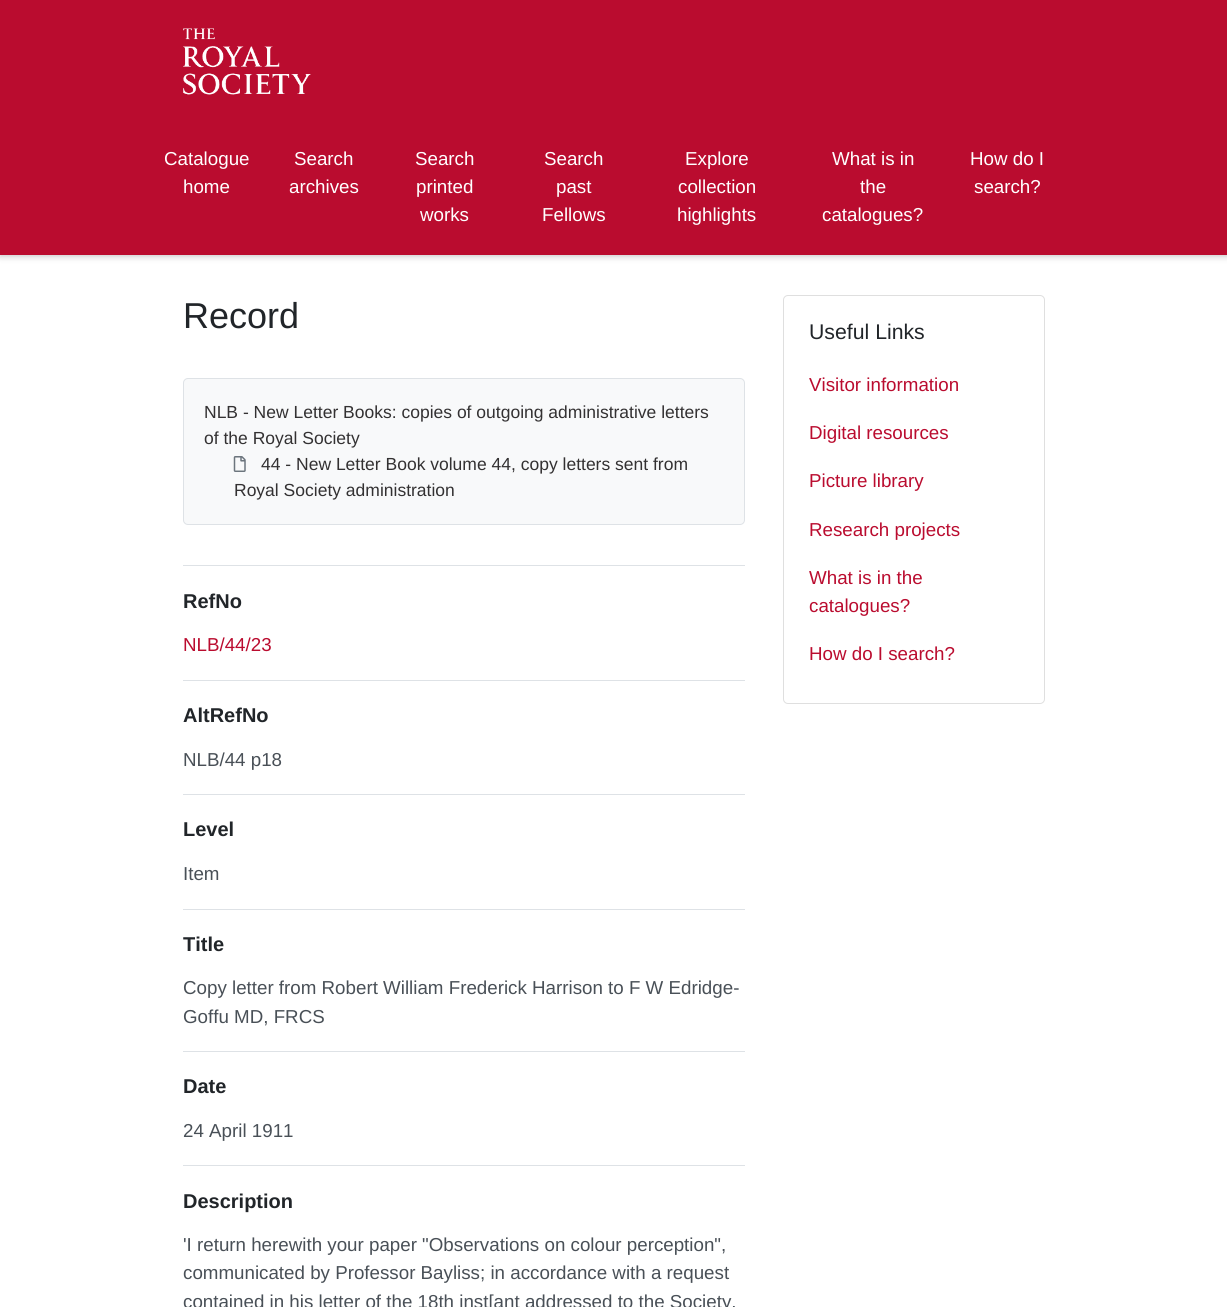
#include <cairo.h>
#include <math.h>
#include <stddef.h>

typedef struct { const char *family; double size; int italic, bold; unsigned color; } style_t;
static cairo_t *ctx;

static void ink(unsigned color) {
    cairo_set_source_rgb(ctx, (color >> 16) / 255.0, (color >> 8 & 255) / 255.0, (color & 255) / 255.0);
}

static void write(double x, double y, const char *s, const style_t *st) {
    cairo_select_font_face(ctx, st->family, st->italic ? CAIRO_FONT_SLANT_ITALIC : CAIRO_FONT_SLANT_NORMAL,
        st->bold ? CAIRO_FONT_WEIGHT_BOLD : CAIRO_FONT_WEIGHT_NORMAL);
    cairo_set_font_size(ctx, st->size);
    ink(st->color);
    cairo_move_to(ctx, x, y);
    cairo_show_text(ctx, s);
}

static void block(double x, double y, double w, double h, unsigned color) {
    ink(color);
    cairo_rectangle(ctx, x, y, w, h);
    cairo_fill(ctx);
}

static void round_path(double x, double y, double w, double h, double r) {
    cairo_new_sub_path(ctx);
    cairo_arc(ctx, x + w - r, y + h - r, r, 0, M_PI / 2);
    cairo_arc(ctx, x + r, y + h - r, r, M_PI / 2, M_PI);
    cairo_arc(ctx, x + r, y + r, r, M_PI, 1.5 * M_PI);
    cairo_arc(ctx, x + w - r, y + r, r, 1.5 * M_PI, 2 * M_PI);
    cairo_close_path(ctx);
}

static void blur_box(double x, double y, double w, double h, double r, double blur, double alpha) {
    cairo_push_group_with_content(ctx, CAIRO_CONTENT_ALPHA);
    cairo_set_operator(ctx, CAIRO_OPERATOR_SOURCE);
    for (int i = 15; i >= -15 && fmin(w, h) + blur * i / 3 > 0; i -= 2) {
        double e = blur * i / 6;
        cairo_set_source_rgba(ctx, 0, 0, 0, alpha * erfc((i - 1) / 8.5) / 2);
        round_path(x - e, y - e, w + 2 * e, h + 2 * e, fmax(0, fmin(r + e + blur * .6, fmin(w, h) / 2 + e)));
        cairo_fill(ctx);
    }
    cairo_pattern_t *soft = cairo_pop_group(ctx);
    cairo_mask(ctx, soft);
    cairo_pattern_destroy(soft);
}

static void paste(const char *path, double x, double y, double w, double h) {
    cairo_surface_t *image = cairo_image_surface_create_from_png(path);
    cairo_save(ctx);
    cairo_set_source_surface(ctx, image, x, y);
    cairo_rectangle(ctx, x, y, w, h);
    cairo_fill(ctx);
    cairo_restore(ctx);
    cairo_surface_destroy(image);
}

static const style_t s1 = {"Liberation Sans", 18.75, 0, 0, 0xffffff};
static const style_t s2 = {"Liberation Sans", 36, 0, 0, 0x212529};
static const style_t s3 = {"Liberation Sans", 17.5, 0, 0, 0x333132};
static const style_t s4 = {"Liberation Sans", 20, 0, 1, 0x212529};
static const style_t s5 = {"Liberation Sans", 18.75, 0, 0, 0xba0c2f};
static const style_t s6 = {"Liberation Sans", 18.75, 0, 0, 0x495057};
static const style_t s7 = {"Liberation Sans", 21.25, 0, 0, 0x212529};

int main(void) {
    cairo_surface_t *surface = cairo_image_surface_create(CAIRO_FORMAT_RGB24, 1227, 1307);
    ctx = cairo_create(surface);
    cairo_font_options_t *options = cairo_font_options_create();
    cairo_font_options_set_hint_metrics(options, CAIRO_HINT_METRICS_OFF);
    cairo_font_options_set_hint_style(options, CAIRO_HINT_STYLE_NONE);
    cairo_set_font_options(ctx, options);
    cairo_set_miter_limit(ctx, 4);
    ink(0xffffff);
    cairo_paint(ctx);
    ink(0x000000);
    blur_box(0, 0, 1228, 255, 0, 4, 0.3);
    block(0, 0, 1227, 255, 0xba0c2f);
    paste("pic1.png", 183, 28, 128, 67);
    write(164, 165, "Catalogue", &s1);
    write(183, 193, "home", &s1);
    write(294, 165, "Search", &s1);
    write(289, 193, "archives", &s1);
    write(415, 165, "Search", &s1);
    write(416, 193, "printed", &s1);
    write(420, 221, "works", &s1);
    write(544, 165, "Search", &s1);
    write(556, 193, "past", &s1);
    write(542, 221, "Fellows", &s1);
    write(685, 165, "Explore", &s1);
    write(678, 193, "collection", &s1);
    write(677, 221, "highlights", &s1);
    write(832, 165, "What is in", &s1);
    write(860, 193, "the", &s1);
    write(822, 221, "catalogues?", &s1);
    write(970, 165, "How do I", &s1);
    write(974, 193, "search?", &s1);
    write(183, 328, "Record", &s2);
    ink(0xf8f9fa);
    round_path(183.5, 378.5, 561, 146, 4.5);
    cairo_fill_preserve(ctx);
    ink(0xdee2e6);
    cairo_set_line_width(ctx, 1);
    cairo_stroke(ctx);
    write(204, 418, "NLB - New Letter Books: copies of outgoing administrative letters", &s3);
    write(204, 444, "of the Royal Society", &s3);
    paste("pic2.png", 233, 456, 13, 16);
    write(261, 470, "44 - New Letter Book volume 44, copy letters sent from", &s3);
    write(234, 496, "Royal Society administration", &s3);
    block(183, 565, 562, 1, 0xdee2e6);
    write(183, 608, "RefNo", &s4);
    write(183, 651, "NLB/44/23", &s5);
    block(183, 680, 562, 1, 0xdee2e6);
    write(183, 722, "AltRefNo", &s4);
    write(183, 766, "NLB/44 p18", &s6);
    block(183, 794, 562, 1, 0xdee2e6);
    write(183, 836, "Level", &s4);
    write(183, 880, "Item", &s6);
    block(183, 909, 562, 1, 0xdee2e6);
    write(183, 951, "Title", &s4);
    write(183, 994, "Copy letter from Robert William Frederick Harrison to F W Edridge-", &s6);
    write(183, 1023, "Goffu MD, FRCS", &s6);
    block(183, 1051, 562, 1, 0xdee2e6);
    write(183, 1093, "Date", &s4);
    write(183, 1137, "24 April 1911", &s6);
    block(183, 1165, 562, 1, 0xdee2e6);
    write(183, 1208, "Description", &s4);
    write(183, 1251, "'I return herewith your paper \"Observations on colour perception\",", &s6);
    write(183, 1279, "communicated by Professor Bayliss; in accordance with a request", &s6);
    write(183, 1308, "contained in his letter of the 18th inst[ant addressed to the Society.", &s6);
    round_path(783.5, 295.5, 261, 408, 4.5);
    ink(0xdfdfdf);
    cairo_stroke(ctx);
    write(809, 339, "Useful Links", &s7);
    write(809, 391, "Visitor information", &s5);
    write(809, 439, "Digital resources", &s5);
    write(809, 487, "Picture library", &s5);
    write(809, 536, "Research projects", &s5);
    write(809, 584, "What is in the", &s5);
    write(809, 612, "catalogues?", &s5);
    write(809, 660, "How do I search?", &s5);
    cairo_surface_write_to_png(surface, "screenshot.png");
    cairo_font_options_destroy(options);
    cairo_destroy(ctx);
    cairo_surface_destroy(surface);
    return 0;
}
